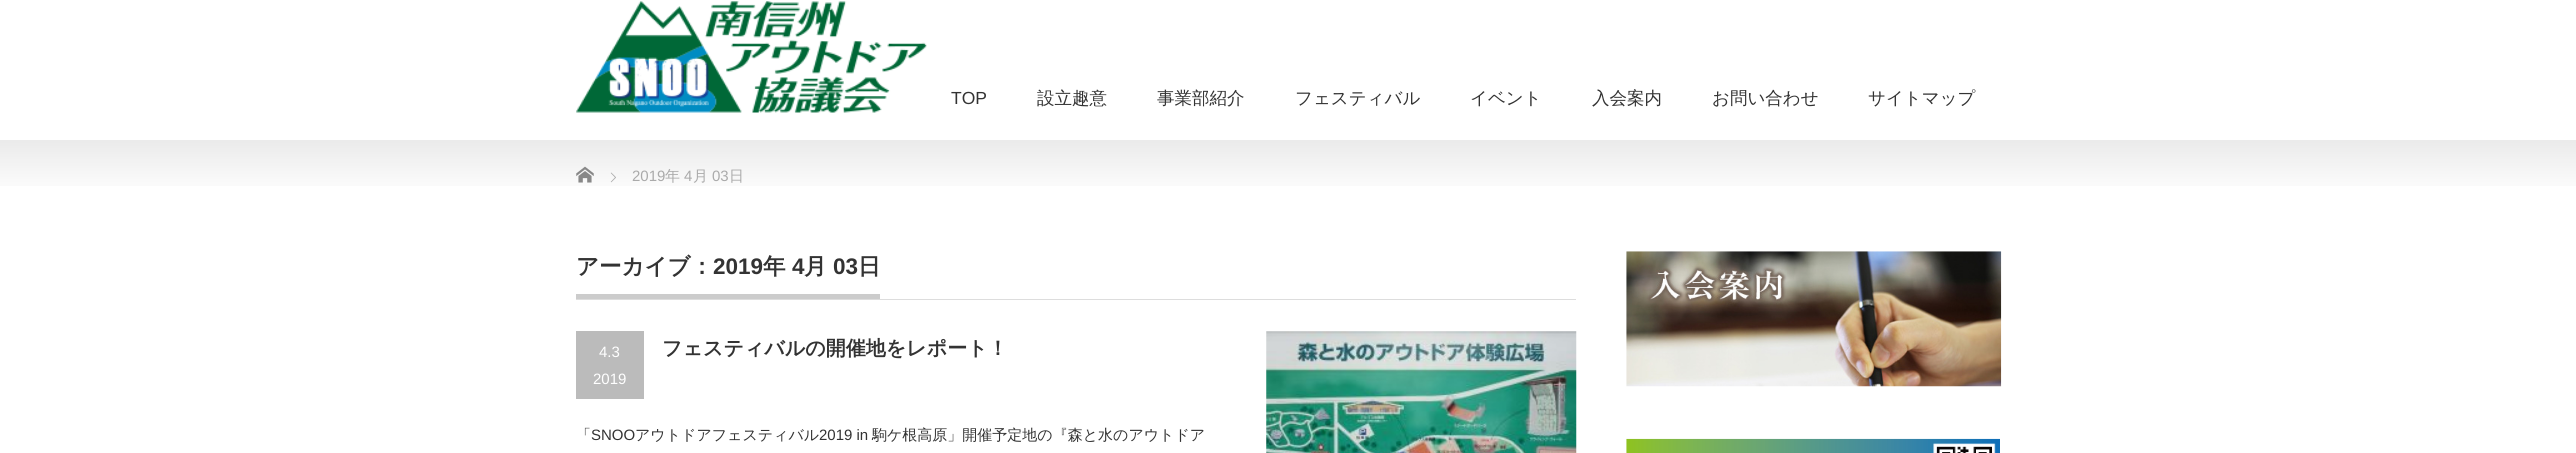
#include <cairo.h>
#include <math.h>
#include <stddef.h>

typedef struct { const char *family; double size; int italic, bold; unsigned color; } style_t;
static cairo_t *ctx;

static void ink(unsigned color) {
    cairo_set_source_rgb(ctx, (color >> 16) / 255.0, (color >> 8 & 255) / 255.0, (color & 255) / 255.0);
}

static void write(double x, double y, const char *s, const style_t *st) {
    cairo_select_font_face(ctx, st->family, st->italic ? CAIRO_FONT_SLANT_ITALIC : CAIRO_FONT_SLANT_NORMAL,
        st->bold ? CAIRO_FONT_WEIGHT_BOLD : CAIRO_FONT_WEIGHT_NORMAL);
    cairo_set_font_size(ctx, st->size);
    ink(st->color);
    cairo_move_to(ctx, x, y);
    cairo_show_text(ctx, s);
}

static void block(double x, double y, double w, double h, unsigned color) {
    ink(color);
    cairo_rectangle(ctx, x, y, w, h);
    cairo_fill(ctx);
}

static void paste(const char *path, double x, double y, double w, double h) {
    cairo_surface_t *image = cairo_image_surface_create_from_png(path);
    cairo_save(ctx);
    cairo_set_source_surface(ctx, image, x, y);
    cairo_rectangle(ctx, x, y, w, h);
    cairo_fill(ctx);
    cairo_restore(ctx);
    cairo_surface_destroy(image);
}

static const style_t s1 = {"Liberation Sans", 17.5, 0, 0, 0x333333};
static const style_t s2 = {"WenQuanYi Zen Hei Medium", 17.5, 0, 0, 0x333333};
static const style_t s3 = {"Liberation Sans", 15, 0, 0, 0xaaaaaa};
static const style_t s4 = {"WenQuanYi Zen Hei Medium", 15, 0, 0, 0xaaaaaa};
static const style_t s5 = {"WenQuanYi Zen Hei", 22.5, 0, 1, 0x333333};
static const style_t s6 = {"Liberation Sans", 22.5, 0, 1, 0x333333};
static const style_t s7 = {"Liberation Sans", 15, 0, 0, 0xffffff};
static const style_t s8 = {"WenQuanYi Zen Hei", 20, 0, 1, 0x333333};
static const style_t s9 = {"WenQuanYi Zen Hei Medium", 15, 0, 0, 0x333333};
static const style_t s10 = {"Liberation Sans", 15, 0, 0, 0x333333};

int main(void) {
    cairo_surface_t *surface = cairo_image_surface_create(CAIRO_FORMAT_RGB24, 2576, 453);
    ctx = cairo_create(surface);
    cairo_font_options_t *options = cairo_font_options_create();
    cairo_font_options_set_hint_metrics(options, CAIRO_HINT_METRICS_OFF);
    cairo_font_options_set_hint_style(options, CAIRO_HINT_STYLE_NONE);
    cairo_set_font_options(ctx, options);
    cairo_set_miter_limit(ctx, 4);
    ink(0xffffff);
    cairo_paint(ctx);
    paste("pic1.png", 576, 1, 351, 112);
    write(951, 104, "TOP", &s1);
    write(1037, 104, "設立趣意", &s2);
    write(1157, 104, "事業部紹介", &s2);
    write(1295, 104, "フェスティバル", &s2);
    write(1470, 104, "イベント", &s2);
    write(1592, 104, "入会案内", &s2);
    write(1712, 104, "お問い合わせ", &s2);
    write(1868, 104, "サイトマップ", &s2);
    paste("pic2.png", 0, 140, 2576, 46);
    paste("pic3.png", 576, 166, 18, 17);
    paste("pic4.png", 610, 172, 6, 11);
    write(632, 181, "2019", &s3);
    write(665, 181, "年", &s4);
    write(684, 181, "4", &s3);
    write(693, 181, "月", &s4);
    write(712, 181, "03", &s3);
    write(729, 181, "日", &s4);
    block(576, 299, 1000, 1, 0xdddddd);
    block(576, 294, 304, 5, 0xcccccc);
    write(576, 274, "アーカイブ：", &s5);
    write(713, 274, "2019", &s6);
    write(763, 274, "年", &s5);
    write(792, 274, "4", &s6);
    write(804, 274, "月", &s5);
    write(833, 274, "03", &s6);
    write(858, 274, "日", &s5);
    block(576, 331, 68, 68, 0xbbbbbb);
    write(599, 357, "4.3", &s7);
    write(593, 384, "2019", &s7);
    write(662, 355, "フェスティバルの開催地をレポート！", &s8);
    write(576, 440, "「", &s9);
    write(591, 440, "SNOO", &s10);
    write(635, 440, "アウトドアフェスティバル", &s9);
    write(819, 440, "2019 in", &s10);
    write(872, 440, "駒ケ根高原」開催予定地の『森と水のアウトドア", &s9);
    paste("pic5.png", 1266, 331, 311, 122);
    paste("pic6.png", 1626, 251, 376, 136);
    paste("pic7.png", 1626, 438, 374, 15);
    cairo_surface_write_to_png(surface, "screenshot.png");
    cairo_font_options_destroy(options);
    cairo_destroy(ctx);
    cairo_surface_destroy(surface);
    return 0;
}
